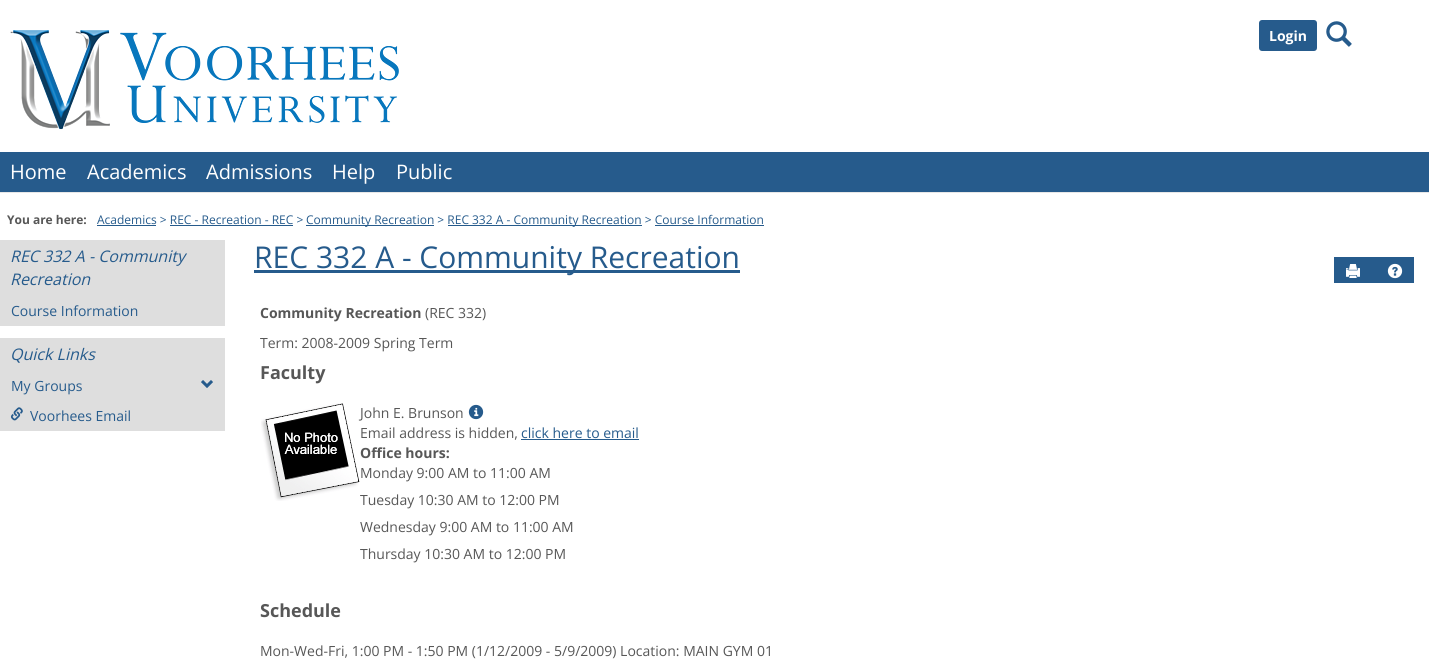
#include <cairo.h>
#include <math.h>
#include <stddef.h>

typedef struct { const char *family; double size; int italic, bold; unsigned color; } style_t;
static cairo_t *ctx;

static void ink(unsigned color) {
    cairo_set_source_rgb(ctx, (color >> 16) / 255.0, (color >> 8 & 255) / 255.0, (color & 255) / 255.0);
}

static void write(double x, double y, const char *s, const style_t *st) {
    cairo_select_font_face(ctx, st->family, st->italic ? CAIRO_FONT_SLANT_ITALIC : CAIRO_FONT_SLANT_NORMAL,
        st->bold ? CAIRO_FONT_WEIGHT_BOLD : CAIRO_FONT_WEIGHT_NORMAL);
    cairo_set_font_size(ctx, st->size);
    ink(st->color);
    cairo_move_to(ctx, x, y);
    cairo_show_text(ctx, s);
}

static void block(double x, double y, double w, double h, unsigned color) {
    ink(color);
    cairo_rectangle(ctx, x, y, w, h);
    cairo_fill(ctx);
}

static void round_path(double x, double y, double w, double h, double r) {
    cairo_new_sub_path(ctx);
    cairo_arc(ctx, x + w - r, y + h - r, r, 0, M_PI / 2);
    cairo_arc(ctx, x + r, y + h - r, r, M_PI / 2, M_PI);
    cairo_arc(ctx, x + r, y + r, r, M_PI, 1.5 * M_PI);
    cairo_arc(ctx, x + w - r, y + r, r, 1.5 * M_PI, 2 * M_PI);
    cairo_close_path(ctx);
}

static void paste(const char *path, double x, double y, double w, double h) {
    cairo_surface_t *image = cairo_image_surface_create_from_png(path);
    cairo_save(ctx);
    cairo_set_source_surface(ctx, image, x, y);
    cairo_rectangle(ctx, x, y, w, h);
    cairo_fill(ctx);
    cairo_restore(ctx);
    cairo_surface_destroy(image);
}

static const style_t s1 = {"Open Sans", 14, 0, 1, 0xffffff};
static const style_t s2 = {"Open Sans", 20, 0, 0, 0xffffff};
static const style_t s3 = {"Open Sans", 12, 0, 1, 0x575757};
static const style_t s4 = {"Open Sans", 12, 0, 0, 0x265b8c};
static const style_t s5 = {"Open Sans", 16, 1, 0, 0x265b8c};
static const style_t s6 = {"Open Sans", 14, 0, 0, 0x265b8c};
static const style_t s7 = {"Open Sans", 30, 0, 0, 0x265b8c};
static const style_t s8 = {"Open Sans", 14, 0, 1, 0x575757};
static const style_t s9 = {"Open Sans", 14, 0, 0, 0x575757};
static const style_t s10 = {"Open Sans", 18, 0, 1, 0x575757};

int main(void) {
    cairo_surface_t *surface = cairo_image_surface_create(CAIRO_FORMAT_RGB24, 1429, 663);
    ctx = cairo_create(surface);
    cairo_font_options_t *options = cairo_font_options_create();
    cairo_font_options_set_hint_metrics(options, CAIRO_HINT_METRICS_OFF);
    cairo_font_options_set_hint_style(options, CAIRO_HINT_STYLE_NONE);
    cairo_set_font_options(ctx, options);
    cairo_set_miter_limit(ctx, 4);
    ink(0xffffff);
    cairo_paint(ctx);
    paste("pic1.png", 10, 30, 389, 100);
    ink(0x265b8c);
    round_path(1259, 20, 58, 31, 3);
    cairo_fill(ctx);
    write(1269, 41, "Login", &s1);
    paste("pic2.png", 1326, 21, 26, 26);
    block(0, 152, 1429, 40, 0x265b8c);
    block(0, 192, 1429, 1, 0xe7e7e7);
    write(10, 179, "Home", &s2);
    write(87, 179, "Academics", &s2);
    write(206, 179, "Admissions", &s2);
    write(332, 179, "Help", &s2);
    write(396, 179, "Public", &s2);
    write(7, 224, "You are here:", &s3);
    write(97, 224, "Academics > REC - Recreation - REC >", &s4);
    block(97, 225, 59, 1, 0x265b8c);
    block(306, 225, 128, 1, 0x265b8c);
    write(306, 224, "Community Recreation > REC", &s4);
    block(448, 225, 194, 1, 0x265b8c);
    write(472, 224, "332 A - Community Recreation > Course Information", &s4);
    block(170, 225, 123, 1, 0x265b8c);
    block(655, 225, 109, 1, 0x265b8c);
    block(0, 240, 225, 191, 0xdedede);
    write(10, 262, "REC 332 A - Community", &s5);
    write(10, 285, "Recreation", &s5);
    write(11, 316, "Course Information", &s6);
    block(0, 326, 225, 12, 0xffffff);
    write(10, 360, "Quick Links", &s5);
    write(11, 391, "My Groups", &s6);
    paste("pic3.png", 201, 380, 12, 8);
    paste("pic4.png", 10, 407, 13, 14);
    write(30, 421, "Voorhees Email", &s6);
    block(254, 270, 486, 3, 0x265b8c);
    write(254, 268, "REC 332 A - Community Recreation", &s7);
    block(1334, 257, 80, 26, 0x265b8c);
    paste("pic5.png", 1346, 264, 14, 14);
    paste("pic6.png", 1387, 263, 16, 16);
    write(260, 318, "Community Recreation", &s8);
    write(425, 318, "(REC 332)", &s9);
    write(260, 348, "Term: 2008-2009 Spring Term", &s9);
    write(260, 379, "Faculty", &s10);
    paste("pic7.png", 261, 403, 99, 98);
    write(360, 418, "John E. Brunson", &s9);
    paste("pic8.png", 468, 404, 16, 16);
    write(360, 438, "Email address is hidden,", &s9);
    write(521, 438, "click here to email", &s6);
    block(521, 439, 118, 1, 0x265b8c);
    write(360, 458, "Office hours:", &s8);
    write(360, 478, "Monday 9:00 AM to 11:00 AM", &s9);
    write(360, 505, "Tuesday 10:30 AM to 12:00 PM", &s9);
    write(360, 532, "Wednesday 9:00 AM to 11:00 AM", &s9);
    write(360, 559, "Thursday 10:30 AM to 12:00 PM", &s9);
    write(260, 617, "Schedule", &s10);
    write(260, 656, "Mon-Wed-Fri, 1:00 PM - 1:50 PM (1/12/2009 - 5/9/2009) Location: MAIN GYM 01", &s9);
    cairo_surface_write_to_png(surface, "screenshot.png");
    cairo_font_options_destroy(options);
    cairo_destroy(ctx);
    cairo_surface_destroy(surface);
    return 0;
}
